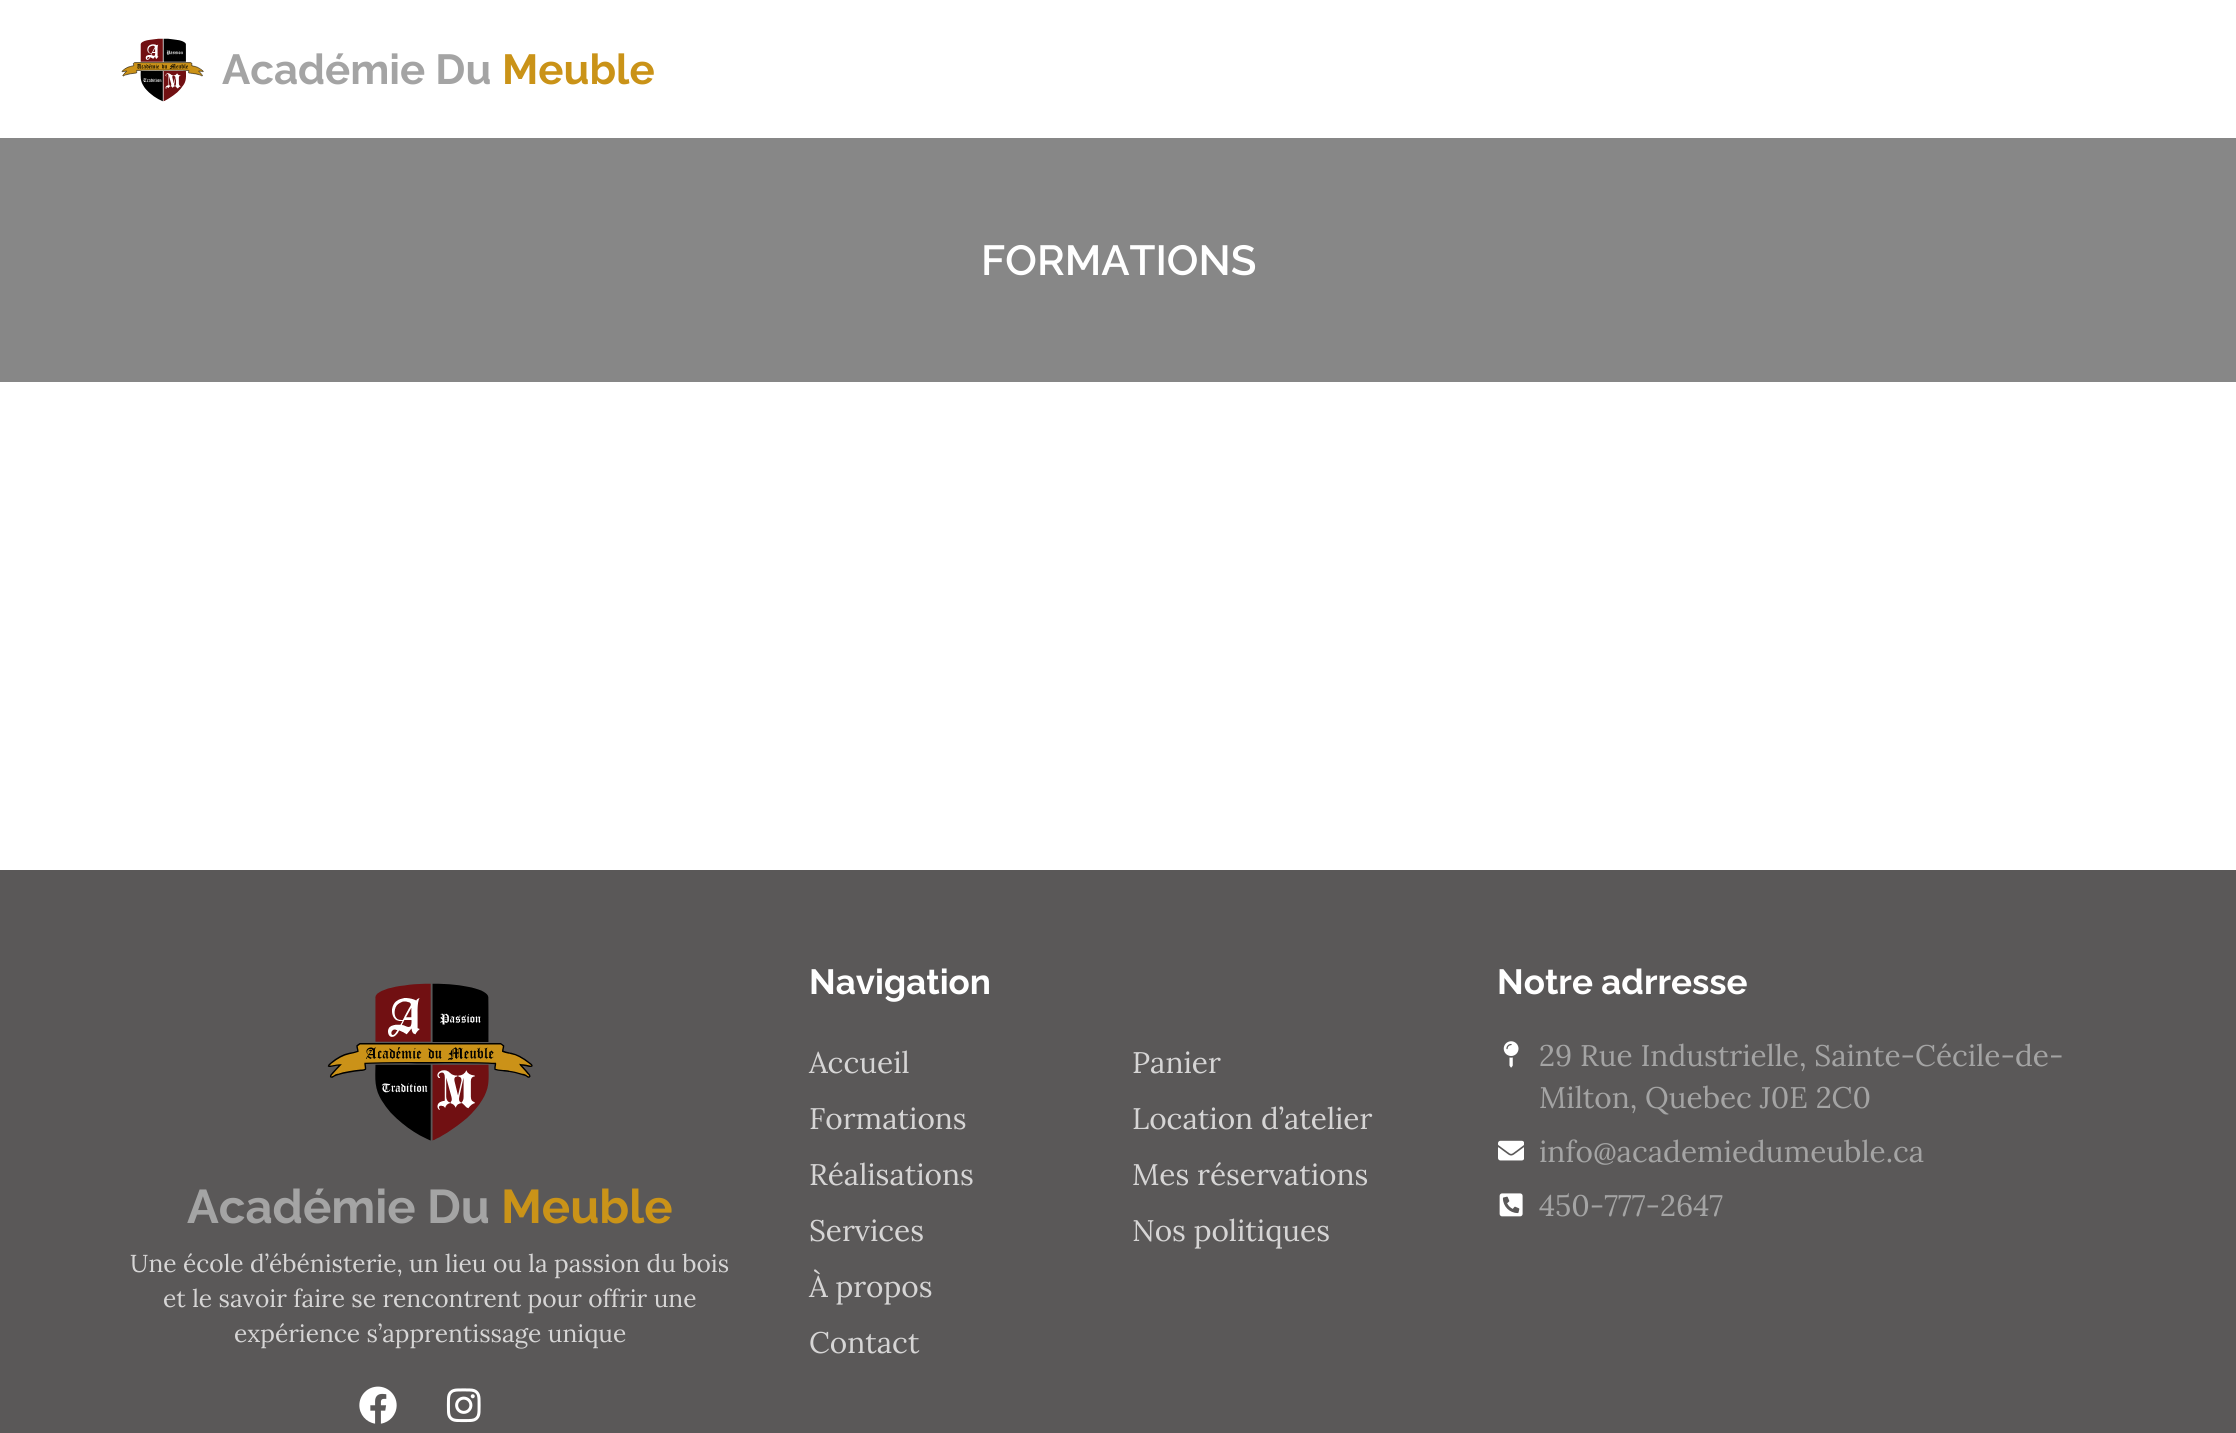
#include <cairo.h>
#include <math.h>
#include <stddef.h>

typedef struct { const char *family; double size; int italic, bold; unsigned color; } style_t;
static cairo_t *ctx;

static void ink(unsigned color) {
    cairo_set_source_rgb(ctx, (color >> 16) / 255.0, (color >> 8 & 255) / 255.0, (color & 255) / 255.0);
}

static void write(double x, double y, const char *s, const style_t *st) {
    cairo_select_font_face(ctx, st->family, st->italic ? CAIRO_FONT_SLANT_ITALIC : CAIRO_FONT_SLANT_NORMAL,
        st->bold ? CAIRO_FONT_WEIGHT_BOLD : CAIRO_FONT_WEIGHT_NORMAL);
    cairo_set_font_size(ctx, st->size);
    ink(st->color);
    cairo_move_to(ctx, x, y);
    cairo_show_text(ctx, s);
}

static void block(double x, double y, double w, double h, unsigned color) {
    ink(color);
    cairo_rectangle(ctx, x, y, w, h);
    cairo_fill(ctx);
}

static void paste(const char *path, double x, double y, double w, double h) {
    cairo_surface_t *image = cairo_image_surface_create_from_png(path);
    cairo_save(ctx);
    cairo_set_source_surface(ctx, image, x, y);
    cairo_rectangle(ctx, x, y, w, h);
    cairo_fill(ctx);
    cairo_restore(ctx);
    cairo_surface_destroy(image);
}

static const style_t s1 = {"Raleway", 42, 0, 1, 0xa4a4a4};
static const style_t s2 = {"Raleway", 42, 0, 1, 0xca9318};
static const style_t s3 = {"Raleway SemiBold", 42, 0, 0, 0xffffff};
static const style_t s4 = {"Raleway", 35, 0, 1, 0xffffff};
static const style_t s5 = {"Lora", 29.75, 0, 0, 0xd6d5d5};
static const style_t s6 = {"Lora", 29.75, 0, 0, 0xa4a4a4};
static const style_t s7 = {"Raleway", 47.25, 0, 1, 0xa4a4a4};
static const style_t s8 = {"Raleway", 47.25, 0, 1, 0xca9318};
static const style_t s9 = {"Lora", 24.5, 0, 0, 0xd6d5d5};

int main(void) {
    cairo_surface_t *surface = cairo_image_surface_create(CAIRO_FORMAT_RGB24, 2236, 1433);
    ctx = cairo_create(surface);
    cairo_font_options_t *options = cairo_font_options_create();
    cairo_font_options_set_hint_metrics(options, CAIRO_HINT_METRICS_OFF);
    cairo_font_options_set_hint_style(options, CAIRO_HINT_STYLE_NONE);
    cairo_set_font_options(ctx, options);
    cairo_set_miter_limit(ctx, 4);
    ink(0xffffff);
    cairo_paint(ctx);
    paste("pic1.png", 121, 38, 83, 64);
    write(222, 84, "Académie Du", &s1);
    write(502, 84, "Meuble", &s2);
    block(0, 138, 2236, 244, 0x878787);
    write(981, 275, "FORMATIONS", &s3);
    block(0, 870, 2236, 563, 0x5a5858);
    write(809, 994, "Navigation", &s4);
    write(809, 1073, "Accueil", &s5);
    write(809, 1129, "Formations", &s5);
    write(809, 1185, "Réalisations", &s5);
    write(809, 1241, "Services", &s5);
    write(809, 1297, "À propos", &s5);
    write(809, 1353, "Contact", &s5);
    write(1132, 1073, "Panier", &s5);
    write(1132, 1129, "Location d’atelier", &s5);
    write(1132, 1185, "Mes réservations", &s5);
    write(1132, 1241, "Nos politiques", &s5);
    write(1497, 994, "Notre adrresse", &s4);
    paste("pic2.png", 1503, 1041, 16, 27);
    write(1539, 1066, "29 Rue Industrielle, Sainte-Cécile-de-", &s6);
    write(1539, 1108, "Milton, Quebec J0E 2C0", &s6);
    paste("pic3.png", 1498, 1140, 26, 21);
    write(1539, 1162, "info@academiedumeuble.ca", &s6);
    paste("pic4.png", 1499, 1193, 24, 24);
    write(1539, 1216, "450-777-2647", &s6);
    paste("pic5.png", 327, 983, 206, 158);
    write(187, 1223, "Académie Du", &s7);
    write(501, 1223, "Meuble", &s8);
    write(130, 1272, "Une école d’ébénisterie, un lieu ou la passion du bois", &s9);
    write(163, 1307, "et le savoir faire se rencontrent pour offrir une", &s9);
    write(234, 1342, "expérience s’apprentissage unique", &s9);
    paste("pic6.png", 359, 1386, 38, 38);
    paste("pic7.png", 446, 1388, 35, 35);
    cairo_surface_write_to_png(surface, "screenshot.png");
    cairo_font_options_destroy(options);
    cairo_destroy(ctx);
    cairo_surface_destroy(surface);
    return 0;
}
